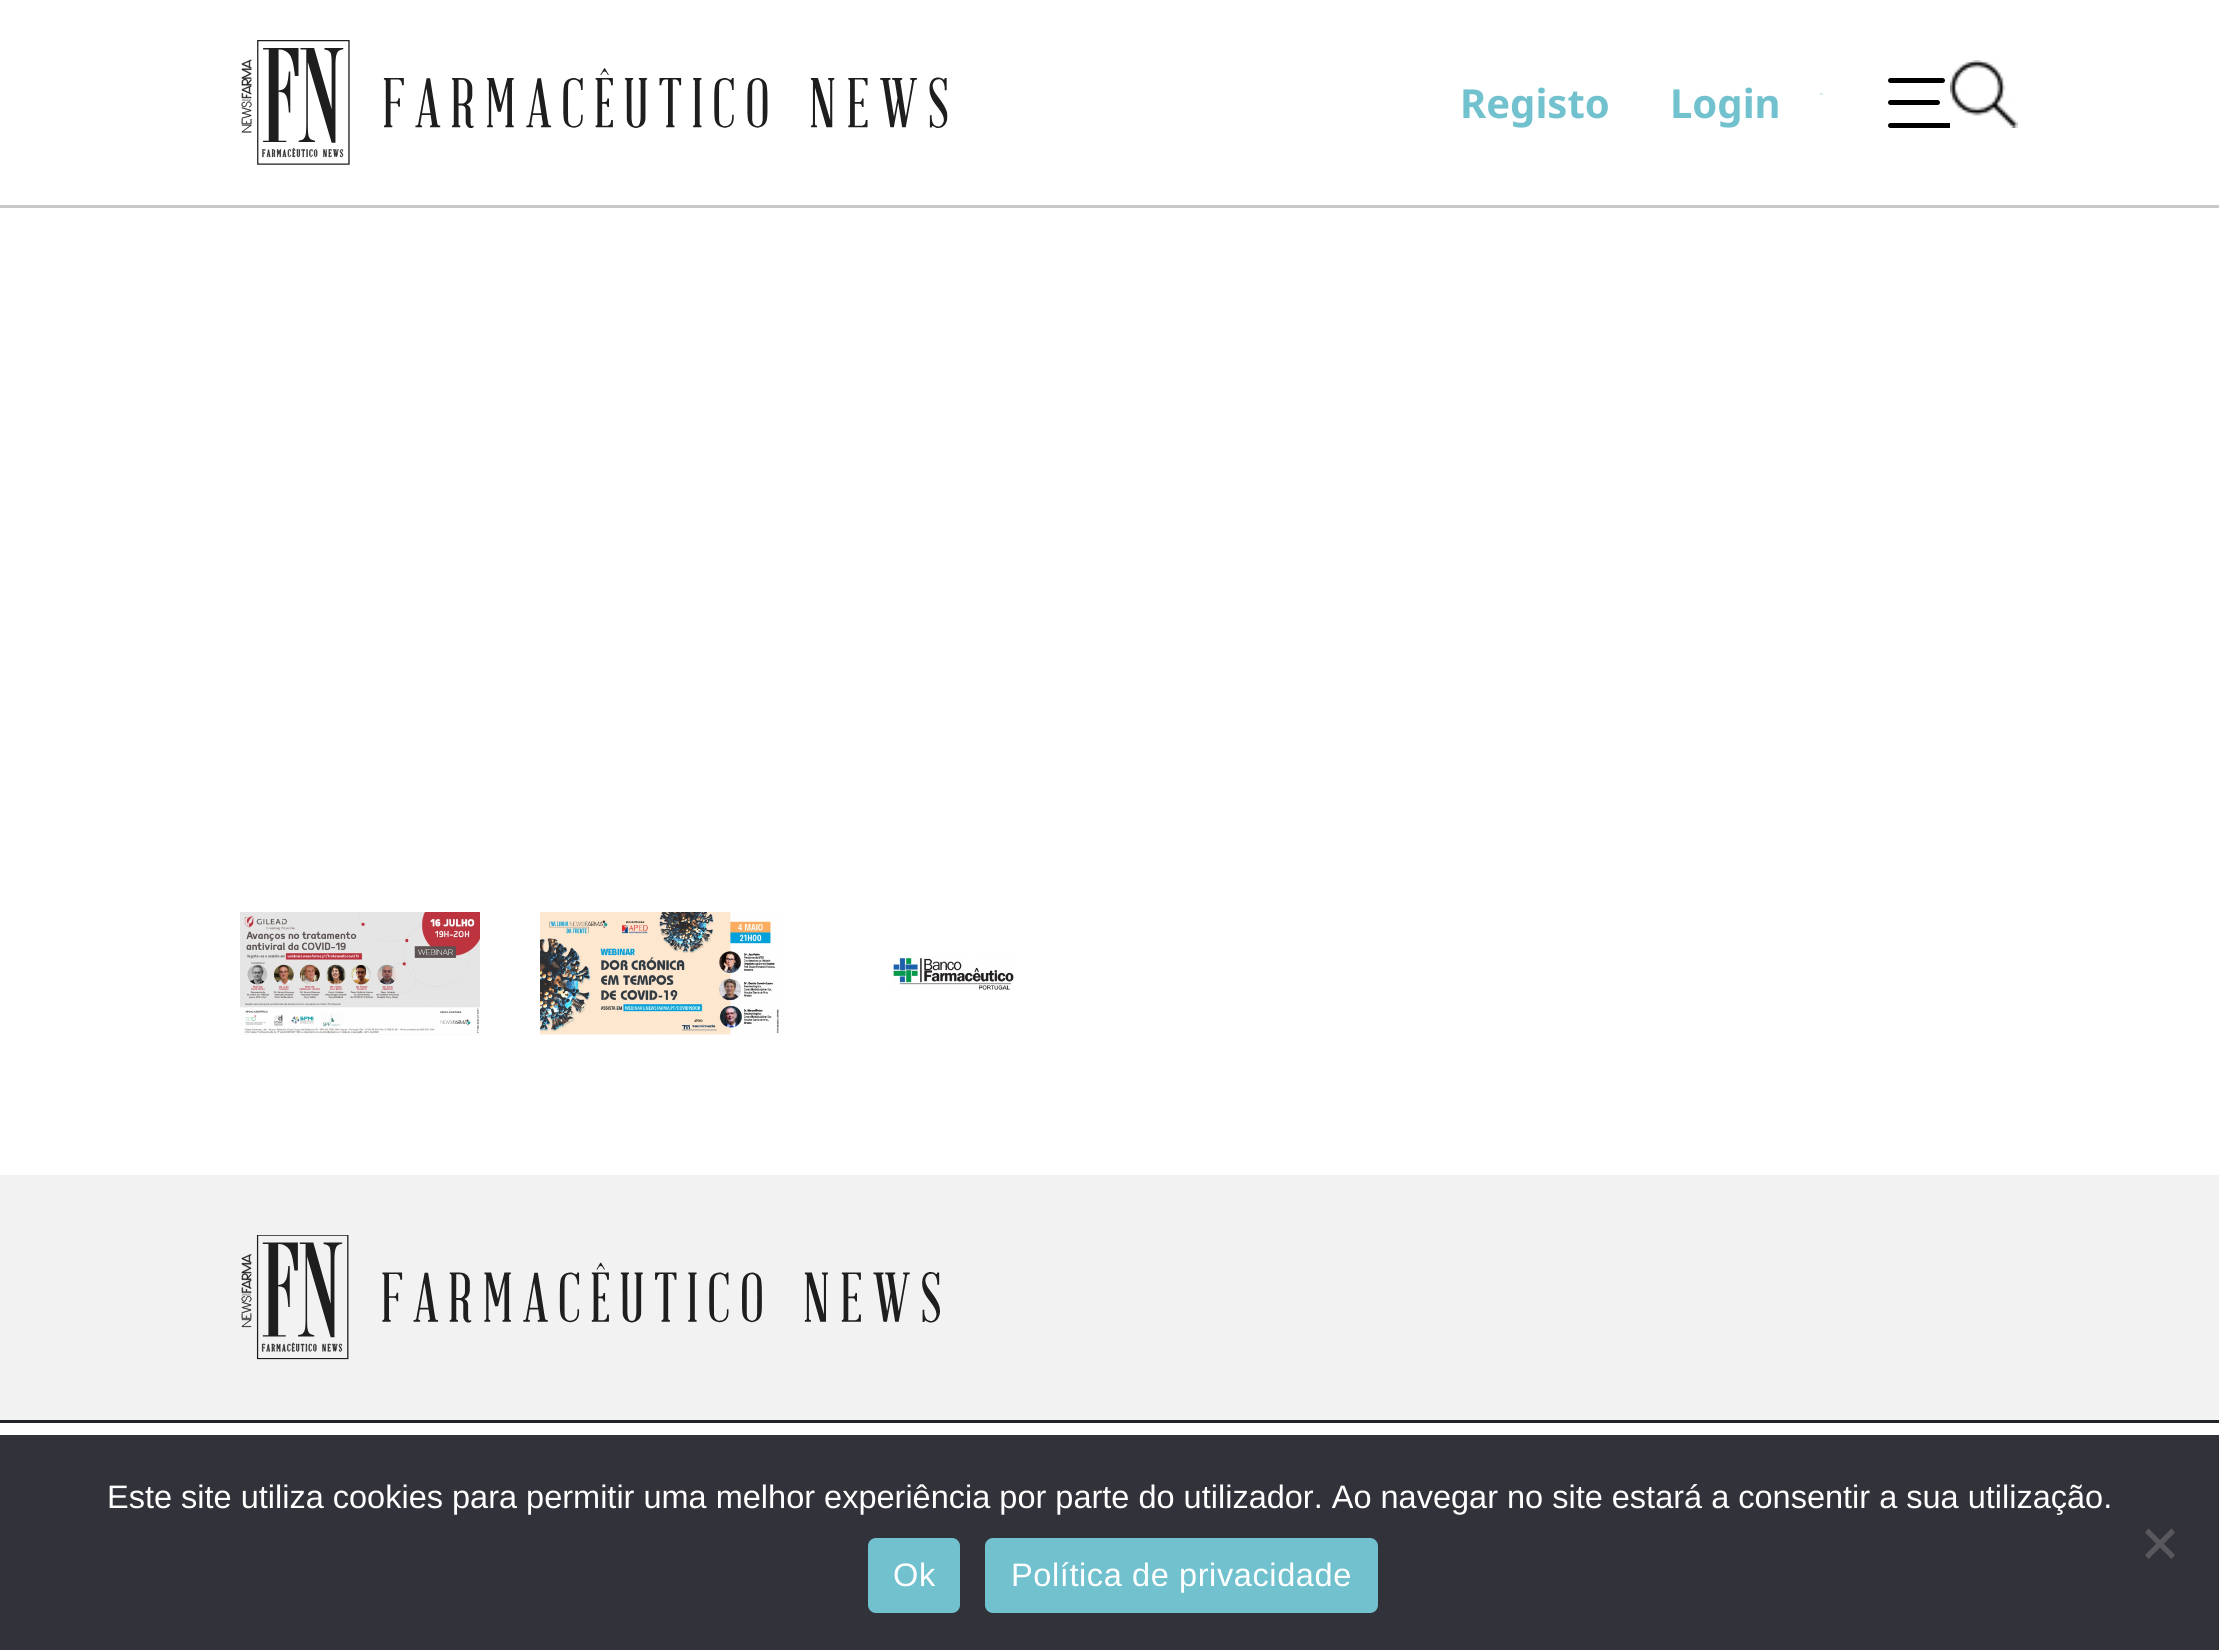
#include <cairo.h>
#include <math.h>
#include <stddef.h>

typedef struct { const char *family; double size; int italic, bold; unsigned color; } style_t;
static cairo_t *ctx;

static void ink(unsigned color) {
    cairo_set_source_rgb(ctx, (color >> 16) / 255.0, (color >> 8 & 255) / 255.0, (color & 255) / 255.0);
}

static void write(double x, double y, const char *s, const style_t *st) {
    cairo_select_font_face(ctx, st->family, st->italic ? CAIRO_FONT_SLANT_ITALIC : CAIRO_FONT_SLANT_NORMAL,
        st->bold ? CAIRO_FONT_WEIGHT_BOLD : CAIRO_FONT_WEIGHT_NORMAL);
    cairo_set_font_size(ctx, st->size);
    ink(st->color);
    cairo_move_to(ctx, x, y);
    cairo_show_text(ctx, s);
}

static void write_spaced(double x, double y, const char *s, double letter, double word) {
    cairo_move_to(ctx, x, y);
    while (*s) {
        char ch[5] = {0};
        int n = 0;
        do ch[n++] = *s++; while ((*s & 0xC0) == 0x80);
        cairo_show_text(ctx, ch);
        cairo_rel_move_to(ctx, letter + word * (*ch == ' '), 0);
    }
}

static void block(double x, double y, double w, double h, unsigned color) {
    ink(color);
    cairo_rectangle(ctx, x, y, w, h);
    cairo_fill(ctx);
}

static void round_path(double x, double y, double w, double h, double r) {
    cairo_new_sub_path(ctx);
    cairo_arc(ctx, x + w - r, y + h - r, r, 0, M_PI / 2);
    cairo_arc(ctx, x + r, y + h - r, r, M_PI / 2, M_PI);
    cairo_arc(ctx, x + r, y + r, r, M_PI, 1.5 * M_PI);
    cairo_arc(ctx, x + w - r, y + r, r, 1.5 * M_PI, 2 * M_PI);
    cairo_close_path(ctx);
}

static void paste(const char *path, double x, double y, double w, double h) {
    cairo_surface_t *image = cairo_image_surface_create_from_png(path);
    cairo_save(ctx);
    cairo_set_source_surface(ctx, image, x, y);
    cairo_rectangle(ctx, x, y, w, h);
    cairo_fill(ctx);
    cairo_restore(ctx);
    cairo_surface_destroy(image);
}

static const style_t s1 = {"Noto Sans", 40, 0, 1, 0x71c2ce};
static const style_t s2 = {"Liberation Sans", 32.5, 0, 0, 0xffffff};

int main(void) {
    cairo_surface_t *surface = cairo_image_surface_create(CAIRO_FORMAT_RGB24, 2219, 1650);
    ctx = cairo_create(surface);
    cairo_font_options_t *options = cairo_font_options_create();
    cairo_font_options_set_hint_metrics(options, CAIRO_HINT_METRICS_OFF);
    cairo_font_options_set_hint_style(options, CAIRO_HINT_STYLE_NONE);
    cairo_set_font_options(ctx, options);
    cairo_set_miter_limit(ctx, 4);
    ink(0xffffff);
    cairo_paint(ctx);
    block(0, 205, 2219, 3, 0xc9c9c9);
    paste("pic1.png", 241, 40, 707, 125);
    write(1460, 118, "Registo", &s1);
    write(1670, 118, "Login", &s1);
    paste("pic2.png", 1820, 93, 3, 2);
    ink(0x000000);
    round_path(1888, 78, 57, 5, 2.5);
    cairo_fill(ctx);
    round_path(1888, 123, 87, 5, 2.5);
    cairo_fill(ctx);
    paste("pic3.png", 1950, 60, 68, 68);
    round_path(1888, 100, 52, 5, 2.5);
    cairo_fill(ctx);
    paste("pic4.png", 240, 912, 240, 123);
    paste("pic5.png", 540, 912, 239, 123);
    paste("pic6.png", 893, 957, 121, 33);
    block(0, 1175, 2219, 245, 0xf2f2f2);
    paste("pic7.png", 241, 1235, 699, 125);
    block(0, 1420, 2219, 3, 0x212529);
    block(0, 1435, 2219, 215, 0x32323a);
    write(107, 1508, "Este site utiliza cookies para permitir uma melhor experiência por parte do utilizador. Ao navegar no site estará a consentir a sua utilização.", &s2);
    ink(0x59595d);
    cairo_new_path(ctx);
    cairo_move_to(ctx, 2171.5, 1528.5);
    cairo_line_to(ctx, 2175, 1532.5);
    cairo_line_to(ctx, 2148.5, 1559);
    cairo_line_to(ctx, 2145, 1555);
    cairo_close_path(ctx);
    cairo_fill(ctx);
    cairo_new_path(ctx);
    cairo_move_to(ctx, 2145, 1532.5);
    cairo_line_to(ctx, 2148.5, 1528.5);
    cairo_line_to(ctx, 2175, 1555);
    cairo_line_to(ctx, 2171.5, 1559);
    cairo_close_path(ctx);
    cairo_fill(ctx);
    ink(0x71c2ce);
    round_path(868, 1538, 92, 75, 8);
    cairo_fill(ctx);
    ink(0xffffff);
    write_spaced(893, 1586, "Ok", 0.6, 0);
    ink(0x71c2ce);
    round_path(985, 1538, 393, 75, 8);
    cairo_fill(ctx);
    ink(0xffffff);
    write_spaced(1011, 1586, "Política de privacidade", 0.6, 0);
    cairo_surface_write_to_png(surface, "screenshot.png");
    cairo_font_options_destroy(options);
    cairo_destroy(ctx);
    cairo_surface_destroy(surface);
    return 0;
}
